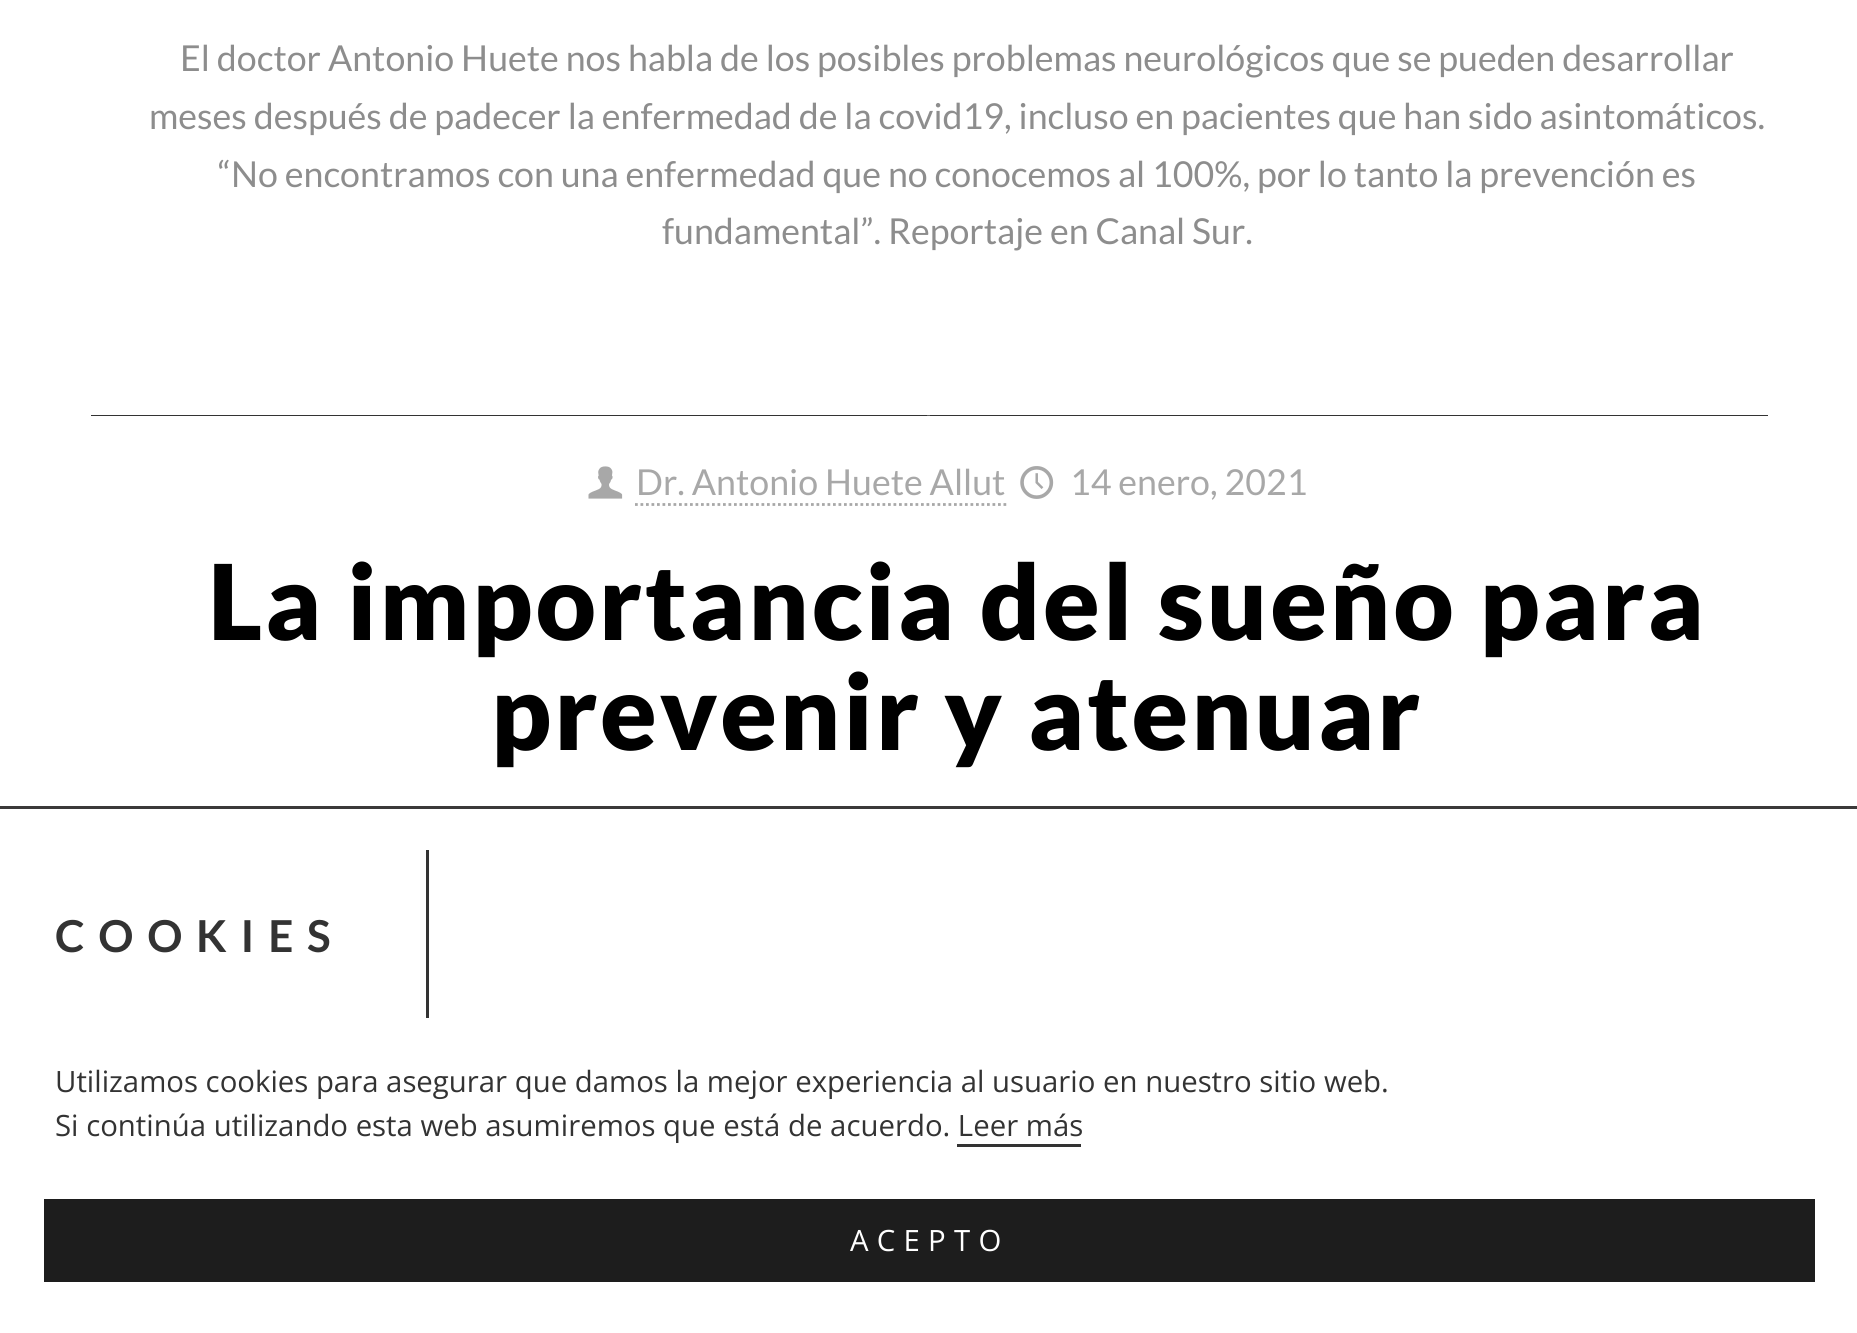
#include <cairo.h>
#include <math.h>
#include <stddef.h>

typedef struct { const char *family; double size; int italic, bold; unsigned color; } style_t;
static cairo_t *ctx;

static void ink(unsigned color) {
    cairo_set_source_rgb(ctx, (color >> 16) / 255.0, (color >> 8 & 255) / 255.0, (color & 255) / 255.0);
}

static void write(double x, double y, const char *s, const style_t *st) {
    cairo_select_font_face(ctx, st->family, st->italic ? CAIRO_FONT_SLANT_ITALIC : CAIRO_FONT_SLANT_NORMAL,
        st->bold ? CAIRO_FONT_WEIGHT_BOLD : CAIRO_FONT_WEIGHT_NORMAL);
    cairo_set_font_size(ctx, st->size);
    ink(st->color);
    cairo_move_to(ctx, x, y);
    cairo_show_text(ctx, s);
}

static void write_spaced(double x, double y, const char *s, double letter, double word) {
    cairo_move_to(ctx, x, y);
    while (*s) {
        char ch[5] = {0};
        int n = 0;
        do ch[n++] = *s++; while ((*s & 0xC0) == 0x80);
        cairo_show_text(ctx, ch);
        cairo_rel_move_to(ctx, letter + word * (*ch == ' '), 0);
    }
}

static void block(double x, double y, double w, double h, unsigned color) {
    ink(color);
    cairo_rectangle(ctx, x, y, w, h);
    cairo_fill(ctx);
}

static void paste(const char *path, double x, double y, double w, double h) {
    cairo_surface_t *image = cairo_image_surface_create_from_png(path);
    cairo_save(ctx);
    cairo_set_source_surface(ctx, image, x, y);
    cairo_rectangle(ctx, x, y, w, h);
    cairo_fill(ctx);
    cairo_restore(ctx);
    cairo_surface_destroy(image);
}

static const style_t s1 = {"Lato", 35.75, 0, 0, 0x8d8d8d};
static const style_t s2 = {"Lato", 35.75, 0, 0, 0xa8a8a8};
static const style_t s3 = {"Open Sans", 29.35, 0, 0, 0x333333};

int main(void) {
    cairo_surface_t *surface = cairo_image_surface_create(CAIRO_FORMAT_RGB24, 1857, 1333);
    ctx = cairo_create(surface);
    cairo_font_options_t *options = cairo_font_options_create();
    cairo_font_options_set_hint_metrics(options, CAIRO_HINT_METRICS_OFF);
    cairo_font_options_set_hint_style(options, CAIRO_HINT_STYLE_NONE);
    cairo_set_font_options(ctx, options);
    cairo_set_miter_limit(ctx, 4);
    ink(0xffffff);
    cairo_paint(ctx);
    write(180, 71, "El doctor Antonio Huete nos habla de los posibles problemas neurológicos que se pueden desarrollar", &s1);
    write(149, 129, "meses después de padecer la enfermedad de la covid19, incluso en pacientes que han sido asintomáticos.", &s1);
    write(218, 187, "“No encontramos con una enfermedad que no conocemos al 100%, por lo tanto la prevención es", &s1);
    write(662, 244, "fundamental”. Reportaje en Canal Sur.", &s1);
    block(91, 415, 1677, 1, 0x333333);
    block(927, 415, 3, 1, 0x5c5c5c);
    paste("pic1.png", 588, 466, 35, 33);
    write(636, 495, "Dr. Antonio Huete Allut", &s2);
    cairo_new_path(ctx);
    cairo_move_to(ctx, 635, 504.5);
    cairo_line_to(ctx, 1006.5, 504.5);
    cairo_set_line_width(ctx, 2.8);
    cairo_set_dash(ctx, (double[]){2.75, 2.75}, 2, 0);
    cairo_stroke(ctx);
    paste("pic2.png", 1020, 466, 34, 33);
    write(1070, 495, "14 enero, 2021", &s2);
    cairo_select_font_face(ctx, "Lato Black", CAIRO_FONT_SLANT_NORMAL, CAIRO_FONT_WEIGHT_NORMAL);
    cairo_set_font_size(ctx, 104.5);
    ink(0x000000);
    write_spaced(208, 640, "La importancia del sueño para", 2.75, 0);
    write_spaced(491, 750, "prevenir y atenuar", 2.75, 0);
    block(0, 806, 1857, 3, 0x3b3939);
    block(426, 850, 3, 168, 0x333333);
    cairo_select_font_face(ctx, "Lato", CAIRO_FONT_SLANT_NORMAL, CAIRO_FONT_WEIGHT_BOLD);
    cairo_set_font_size(ctx, 44);
    write_spaced(55, 952, "COOKIES", 13.75, 0);
    write(55, 1092, "Utilizamos cookies para asegurar que damos la mejor experiencia al usuario en nuestro sitio web.", &s3);
    write(55, 1136, "Si continúa utilizando esta web asumiremos que está de acuerdo. Leer más", &s3);
    block(957, 1144, 124, 3, 0x333333);
    block(44, 1199, 1771, 83, 0x1d1d1d);
    ink(0xffffff);
    write_spaced(850, 1251, "ACEPTO", 8.25, 0);
    cairo_surface_write_to_png(surface, "screenshot.png");
    cairo_font_options_destroy(options);
    cairo_destroy(ctx);
    cairo_surface_destroy(surface);
    return 0;
}
